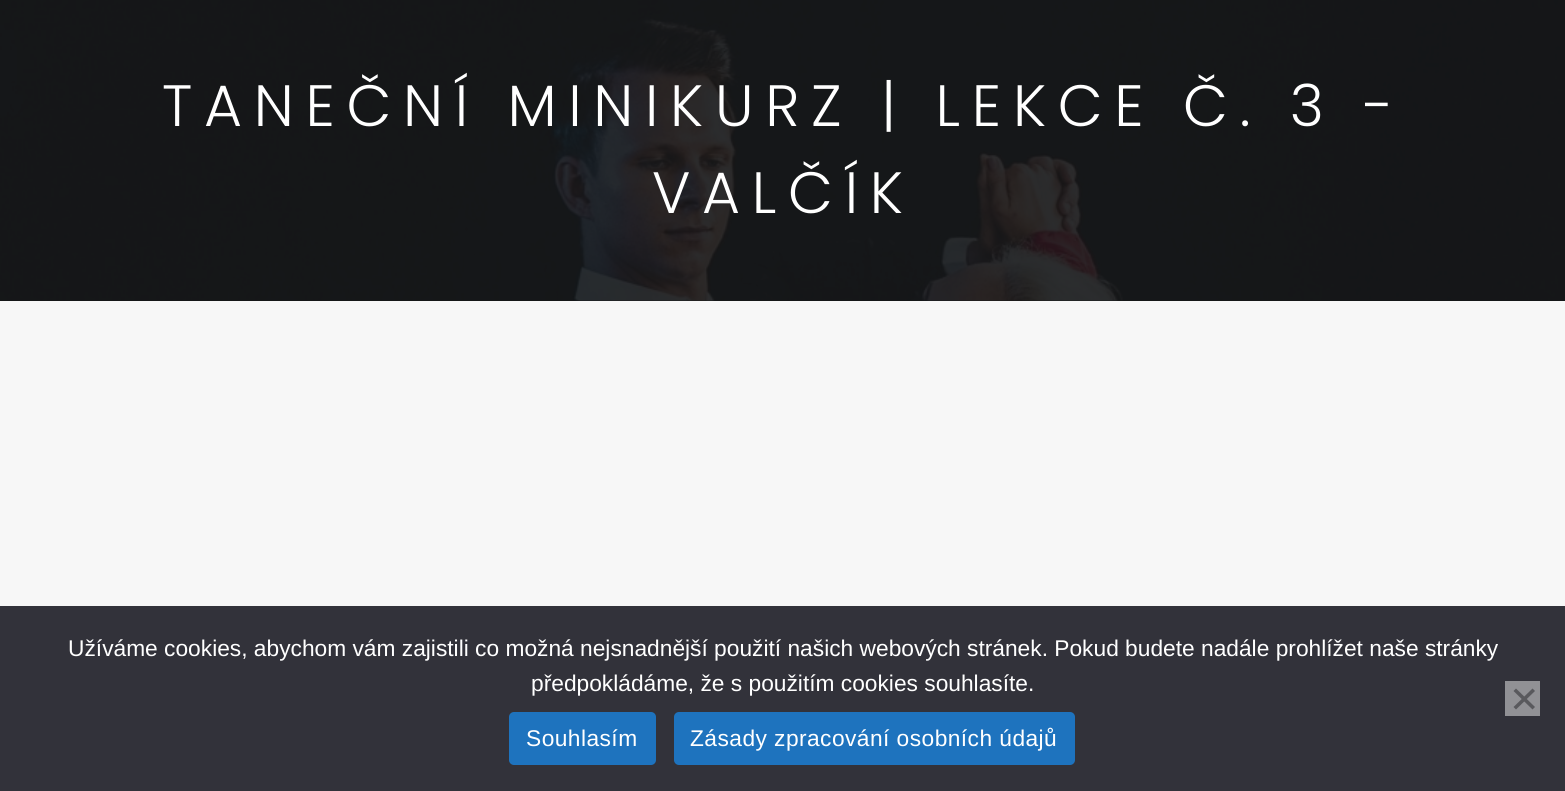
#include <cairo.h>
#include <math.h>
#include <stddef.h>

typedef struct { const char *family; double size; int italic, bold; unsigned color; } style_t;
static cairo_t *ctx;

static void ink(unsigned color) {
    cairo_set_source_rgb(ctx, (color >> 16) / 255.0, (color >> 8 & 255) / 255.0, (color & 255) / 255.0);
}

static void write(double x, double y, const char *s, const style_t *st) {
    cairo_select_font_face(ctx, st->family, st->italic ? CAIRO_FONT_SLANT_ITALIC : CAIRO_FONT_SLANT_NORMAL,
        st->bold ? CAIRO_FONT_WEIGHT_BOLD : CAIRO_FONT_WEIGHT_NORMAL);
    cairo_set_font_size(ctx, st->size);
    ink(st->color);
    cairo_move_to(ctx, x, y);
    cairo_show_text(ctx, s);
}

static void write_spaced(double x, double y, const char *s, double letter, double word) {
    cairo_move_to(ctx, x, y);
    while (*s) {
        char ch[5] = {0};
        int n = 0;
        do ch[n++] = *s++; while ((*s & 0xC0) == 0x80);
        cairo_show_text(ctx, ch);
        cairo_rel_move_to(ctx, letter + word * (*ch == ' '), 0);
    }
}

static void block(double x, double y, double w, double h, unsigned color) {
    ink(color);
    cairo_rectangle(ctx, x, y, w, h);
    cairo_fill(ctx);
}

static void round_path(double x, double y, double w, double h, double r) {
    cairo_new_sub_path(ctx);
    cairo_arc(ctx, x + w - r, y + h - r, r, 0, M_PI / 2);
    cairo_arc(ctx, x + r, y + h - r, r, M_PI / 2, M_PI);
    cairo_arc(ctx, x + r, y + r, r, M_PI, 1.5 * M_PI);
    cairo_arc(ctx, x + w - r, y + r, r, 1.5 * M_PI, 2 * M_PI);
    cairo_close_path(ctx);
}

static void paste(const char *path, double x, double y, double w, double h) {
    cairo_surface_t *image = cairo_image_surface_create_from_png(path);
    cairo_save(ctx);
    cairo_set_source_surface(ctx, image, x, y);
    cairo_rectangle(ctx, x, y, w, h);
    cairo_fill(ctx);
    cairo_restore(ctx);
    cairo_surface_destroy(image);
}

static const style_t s1 = {"Liberation Sans", 22.75, 0, 0, 0xffffff};

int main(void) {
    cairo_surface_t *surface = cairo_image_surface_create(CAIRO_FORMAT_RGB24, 1565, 791);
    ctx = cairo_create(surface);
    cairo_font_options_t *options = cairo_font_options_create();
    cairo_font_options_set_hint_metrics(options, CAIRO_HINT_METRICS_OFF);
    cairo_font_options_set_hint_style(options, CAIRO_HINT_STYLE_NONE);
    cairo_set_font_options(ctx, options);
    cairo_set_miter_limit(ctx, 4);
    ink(0x141618);
    cairo_paint(ctx);
    paste("pic1.png", 0, 0, 1565, 301);
    cairo_select_font_face(ctx, "Poppins Light", CAIRO_FONT_SLANT_NORMAL, CAIRO_FONT_WEIGHT_NORMAL);
    cairo_set_font_size(ctx, 58.3);
    ink(0xffffff);
    write_spaced(162, 126, "TANEČNÍ MINIKURZ | LEKCE Č. 3 -", 11.7, 0);
    write_spaced(652, 213, "VALČÍK", 11.7, 0);
    block(0, 301, 1565, 305, 0xf7f7f7);
    block(0, 606, 1565, 185, 0x32323a);
    write(68, 656, "Užíváme cookies, abychom vám zajistili co možná nejsnadnější použití našich webových stránek. Pokud budete nadále prohlížet naše stránky", &s1);
    write(531, 691, "předpokládáme, že s použitím cookies souhlasíte.", &s1);
    block(1505, 681, 35, 35, 0x919195);
    ink(0x59595d);
    cairo_new_path(ctx);
    cairo_move_to(ctx, 1532.5, 688.5);
    cairo_line_to(ctx, 1535, 691);
    cairo_line_to(ctx, 1516, 709.5);
    cairo_line_to(ctx, 1513.5, 707);
    cairo_close_path(ctx);
    cairo_fill(ctx);
    cairo_new_path(ctx);
    cairo_move_to(ctx, 1513.5, 691);
    cairo_line_to(ctx, 1516, 688.5);
    cairo_line_to(ctx, 1535, 707);
    cairo_line_to(ctx, 1532.5, 709.5);
    cairo_close_path(ctx);
    cairo_fill(ctx);
    ink(0x1e73be);
    round_path(509, 712, 147, 53, 5);
    cairo_fill(ctx);
    ink(0xffffff);
    write_spaced(526, 746, "Souhlasím", 0.45, 0);
    ink(0x1e73be);
    round_path(674, 712, 401, 53, 5);
    cairo_fill(ctx);
    ink(0xffffff);
    write_spaced(690, 746, "Zásady zpracování osobních údajů", 0.45, 0);
    cairo_surface_write_to_png(surface, "screenshot.png");
    cairo_font_options_destroy(options);
    cairo_destroy(ctx);
    cairo_surface_destroy(surface);
    return 0;
}
